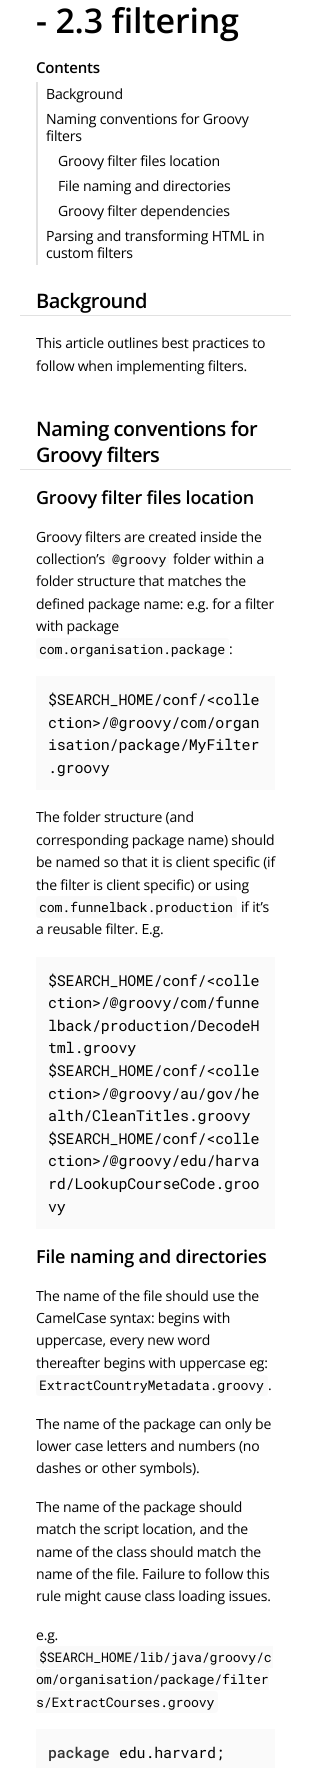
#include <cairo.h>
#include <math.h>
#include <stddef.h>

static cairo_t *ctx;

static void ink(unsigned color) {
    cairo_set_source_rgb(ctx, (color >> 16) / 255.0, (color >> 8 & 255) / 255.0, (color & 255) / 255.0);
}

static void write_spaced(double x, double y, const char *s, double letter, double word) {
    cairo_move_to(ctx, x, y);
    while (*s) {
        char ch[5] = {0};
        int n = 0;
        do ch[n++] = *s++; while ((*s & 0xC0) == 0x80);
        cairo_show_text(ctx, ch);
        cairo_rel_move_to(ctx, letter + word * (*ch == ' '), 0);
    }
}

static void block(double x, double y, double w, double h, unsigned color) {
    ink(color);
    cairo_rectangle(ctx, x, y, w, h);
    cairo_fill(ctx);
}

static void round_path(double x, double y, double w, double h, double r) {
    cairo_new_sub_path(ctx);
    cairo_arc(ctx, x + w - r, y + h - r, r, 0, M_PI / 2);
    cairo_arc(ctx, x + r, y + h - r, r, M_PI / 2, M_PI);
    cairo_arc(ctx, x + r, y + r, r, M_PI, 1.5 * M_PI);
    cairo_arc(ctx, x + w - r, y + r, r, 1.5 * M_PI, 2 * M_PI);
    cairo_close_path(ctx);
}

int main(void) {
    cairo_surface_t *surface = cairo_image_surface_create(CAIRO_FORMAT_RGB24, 311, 1768);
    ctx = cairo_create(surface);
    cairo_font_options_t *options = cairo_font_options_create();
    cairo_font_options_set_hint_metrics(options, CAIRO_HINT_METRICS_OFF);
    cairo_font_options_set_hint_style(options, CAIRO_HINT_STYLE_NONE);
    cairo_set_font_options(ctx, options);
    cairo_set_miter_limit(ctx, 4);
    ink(0xffffff);
    cairo_paint(ctx);
    cairo_select_font_face(ctx, "Open Sans SemiBold", CAIRO_FONT_SLANT_NORMAL, CAIRO_FONT_WEIGHT_NORMAL);
    cairo_set_font_size(ctx, 34);
    ink(0x000000);
    write_spaced(36, 33, "- 2.3 filtering", -0.2, 0);
    cairo_set_font_size(ctx, 15);
    write_spaced(36, 73, "Contents", -0.2, 0);
    block(36, 82, 2, 183, 0xe1e1e1);
    cairo_select_font_face(ctx, "Open Sans", CAIRO_FONT_SLANT_NORMAL, CAIRO_FONT_WEIGHT_NORMAL);
    cairo_set_font_size(ctx, 14.1);
    ink(0x000000);
    write_spaced(46, 99, "Background", -0.2, 0);
    write_spaced(46, 124, "Naming conventions for Groovy", -0.2, 0);
    write_spaced(46, 141, "filters", -0.2, 0);
    write_spaced(58, 166, "Groovy filter files location", -0.2, 0);
    write_spaced(58, 191, "File naming and directories", -0.2, 0);
    write_spaced(58, 216, "Groovy filter dependencies", -0.2, 0);
    write_spaced(46, 241, "Parsing and transforming HTML in", -0.2, 0);
    write_spaced(46, 258, "custom filters", -0.2, 0);
    block(20, 315, 271, 1, 0xe1e1e1);
    cairo_select_font_face(ctx, "Open Sans SemiBold", CAIRO_FONT_SLANT_NORMAL, CAIRO_FONT_WEIGHT_NORMAL);
    cairo_set_font_size(ctx, 20);
    ink(0x000000);
    write_spaced(36, 308, "Background", -0.5, 0);
    cairo_select_font_face(ctx, "Open Sans", CAIRO_FONT_SLANT_NORMAL, CAIRO_FONT_WEIGHT_NORMAL);
    cairo_set_font_size(ctx, 14);
    write_spaced(36, 348, "This article outlines best practices to", -0.2, 0);
    write_spaced(36, 371, "follow when implementing filters.", -0.2, 0);
    block(20, 469, 271, 1, 0xe1e1e1);
    cairo_select_font_face(ctx, "Open Sans SemiBold", CAIRO_FONT_SLANT_NORMAL, CAIRO_FONT_WEIGHT_NORMAL);
    cairo_set_font_size(ctx, 20);
    ink(0x000000);
    write_spaced(36, 436, "Naming conventions for", -0.5, 0);
    write_spaced(36, 462, "Groovy filters", -0.5, 0);
    cairo_set_font_size(ctx, 18);
    write_spaced(36, 504, "Groovy filter files location", -0.2, 0);
    cairo_select_font_face(ctx, "Open Sans", CAIRO_FONT_SLANT_NORMAL, CAIRO_FONT_WEIGHT_NORMAL);
    cairo_set_font_size(ctx, 14);
    write_spaced(36, 542, "Groovy filters are created inside the", -0.2, 0);
    write_spaced(36, 564, "collection’s", -0.2, 0);
    ink(0xfafafa);
    round_path(108, 548, 61, 22, 3);
    cairo_fill(ctx);
    cairo_select_font_face(ctx, "Roboto Mono", CAIRO_FONT_SLANT_NORMAL, CAIRO_FONT_WEIGHT_NORMAL);
    cairo_set_font_size(ctx, 13.25);
    ink(0x000000);
    write_spaced(112, 564, "@groovy", -0.2, 0);
    cairo_select_font_face(ctx, "Open Sans", CAIRO_FONT_SLANT_NORMAL, CAIRO_FONT_WEIGHT_NORMAL);
    cairo_set_font_size(ctx, 14);
    write_spaced(173, 564, "folder within a", -0.2, 0);
    write_spaced(36, 586, "folder structure that matches the", -0.2, 0);
    write_spaced(36, 609, "defined package name: e.g. for a filter", -0.2, 0);
    write_spaced(36, 631, "with package", -0.2, 0);
    ink(0xfafafa);
    round_path(36, 638, 193, 21, 3);
    cairo_fill(ctx);
    cairo_select_font_face(ctx, "Roboto Mono", CAIRO_FONT_SLANT_NORMAL, CAIRO_FONT_WEIGHT_NORMAL);
    cairo_set_font_size(ctx, 13.25);
    ink(0x000000);
    write_spaced(39, 654, "com.organisation.package", -0.2, 0);
    cairo_select_font_face(ctx, "Open Sans", CAIRO_FONT_SLANT_NORMAL, CAIRO_FONT_WEIGHT_NORMAL);
    cairo_set_font_size(ctx, 14);
    write_spaced(229, 654, ":", -0.2, 0);
    block(36, 676, 239, 114, 0xfafafa);
    cairo_select_font_face(ctx, "Roboto Mono", CAIRO_FONT_SLANT_NORMAL, CAIRO_FONT_WEIGHT_NORMAL);
    cairo_set_font_size(ctx, 15);
    ink(0x000000);
    write_spaced(48, 705, "$SEARCH_HOME/conf/<colle", -0.2, 0);
    write_spaced(48, 728, "ction>/@groovy/com/organ", -0.2, 0);
    write_spaced(48, 750, "isation/package/MyFilter", -0.2, 0);
    write_spaced(48, 773, ".groovy", -0.2, 0);
    cairo_select_font_face(ctx, "Open Sans", CAIRO_FONT_SLANT_NORMAL, CAIRO_FONT_WEIGHT_NORMAL);
    cairo_set_font_size(ctx, 14);
    write_spaced(36, 822, "The folder structure (and", -0.2, 0);
    write_spaced(36, 845, "corresponding package name) should", -0.2, 0);
    write_spaced(36, 867, "be named so that it is client specific (if", -0.2, 0);
    write_spaced(36, 890, "the filter is client specific) or using", -0.2, 0);
    ink(0xfafafa);
    round_path(36, 896, 201, 22, 3);
    cairo_fill(ctx);
    cairo_select_font_face(ctx, "Roboto Mono", CAIRO_FONT_SLANT_NORMAL, CAIRO_FONT_WEIGHT_NORMAL);
    cairo_set_font_size(ctx, 13.25);
    ink(0x000000);
    write_spaced(39, 912, "com.funnelback.production", -0.2, 0);
    cairo_select_font_face(ctx, "Open Sans", CAIRO_FONT_SLANT_NORMAL, CAIRO_FONT_WEIGHT_NORMAL);
    cairo_set_font_size(ctx, 14);
    write_spaced(241, 912, "if it’s", -0.2, 0);
    write_spaced(36, 934, "a reusable filter. E.g.", -0.2, 0);
    block(36, 957, 239, 272, 0xfafafa);
    cairo_select_font_face(ctx, "Roboto Mono", CAIRO_FONT_SLANT_NORMAL, CAIRO_FONT_WEIGHT_NORMAL);
    cairo_set_font_size(ctx, 15);
    ink(0x000000);
    write_spaced(48, 986, "$SEARCH_HOME/conf/<colle", -0.2, 0);
    write_spaced(48, 1008, "ction>/@groovy/com/funne", -0.2, 0);
    write_spaced(48, 1031, "lback/production/DecodeH", -0.2, 0);
    write_spaced(48, 1053, "tml.groovy", -0.2, 0);
    write_spaced(48, 1076, "$SEARCH_HOME/conf/<colle", -0.2, 0);
    write_spaced(48, 1099, "ction>/@groovy/au/gov/he", -0.2, 0);
    write_spaced(48, 1121, "alth/CleanTitles.groovy", -0.2, 0);
    write_spaced(48, 1144, "$SEARCH_HOME/conf/<colle", -0.2, 0);
    write_spaced(48, 1166, "ction>/@groovy/edu/harva", -0.2, 0);
    write_spaced(48, 1189, "rd/LookupCourseCode.groo", -0.2, 0);
    write_spaced(48, 1212, "vy", -0.2, 0);
    cairo_select_font_face(ctx, "Open Sans SemiBold", CAIRO_FONT_SLANT_NORMAL, CAIRO_FONT_WEIGHT_NORMAL);
    cairo_set_font_size(ctx, 18);
    write_spaced(36, 1263, "File naming and directories", -0.2, 0);
    cairo_select_font_face(ctx, "Open Sans", CAIRO_FONT_SLANT_NORMAL, CAIRO_FONT_WEIGHT_NORMAL);
    cairo_set_font_size(ctx, 14);
    write_spaced(36, 1301, "The name of the file should use the", -0.2, 0);
    write_spaced(36, 1323, "CamelCase syntax: begins with", -0.2, 0);
    write_spaced(36, 1345, "uppercase, every new word", -0.2, 0);
    write_spaced(36, 1368, "thereafter begins with uppercase eg:", -0.2, 0);
    ink(0xfafafa);
    round_path(36, 1375, 232, 21, 3);
    cairo_fill(ctx);
    cairo_select_font_face(ctx, "Roboto Mono", CAIRO_FONT_SLANT_NORMAL, CAIRO_FONT_WEIGHT_NORMAL);
    cairo_set_font_size(ctx, 13.25);
    ink(0x000000);
    write_spaced(39, 1390, "ExtractCountryMetadata.groovy", -0.2, 0);
    cairo_select_font_face(ctx, "Open Sans", CAIRO_FONT_SLANT_NORMAL, CAIRO_FONT_WEIGHT_NORMAL);
    cairo_set_font_size(ctx, 14);
    write_spaced(268, 1390, ".", -0.2, 0);
    write_spaced(36, 1429, "The name of the package can only be", -0.2, 0);
    write_spaced(36, 1451, "lower case letters and numbers (no", -0.2, 0);
    write_spaced(36, 1473, "dashes or other symbols).", -0.2, 0);
    write_spaced(36, 1512, "The name of the package should", -0.2, 0);
    write_spaced(36, 1534, "match the script location, and the", -0.2, 0);
    write_spaced(36, 1557, "name of the class should match the", -0.2, 0);
    write_spaced(36, 1579, "name of the file. Failure to follow this", -0.2, 0);
    write_spaced(36, 1601, "rule might cause class loading issues.", -0.2, 0);
    write_spaced(36, 1640, "e.g.", -0.2, 0);
    ink(0xfafafa);
    cairo_new_path(ctx);
    cairo_move_to(ctx, 39, 1646);
    cairo_line_to(ctx, 273, 1646);
    cairo_line_to(ctx, 273, 1668);
    cairo_line_to(ctx, 39, 1668);
    cairo_curve_to(ctx, 37.5, 1668, 36, 1666.5, 36, 1665);
    cairo_line_to(ctx, 36, 1649);
    cairo_curve_to(ctx, 36, 1647.5, 37.5, 1646, 39, 1646);
    cairo_close_path(ctx);
    cairo_fill(ctx);
    cairo_select_font_face(ctx, "Roboto Mono", CAIRO_FONT_SLANT_NORMAL, CAIRO_FONT_WEIGHT_NORMAL);
    cairo_set_font_size(ctx, 13.25);
    ink(0x000000);
    write_spaced(39, 1662, "$SEARCH_HOME/lib/java/groovy/c", -0.2, 0);
    block(36, 1669, 233, 21, 0xfafafa);
    ink(0x000000);
    write_spaced(36, 1684, "om/organisation/package/filter", -0.2, 0);
    ink(0xfafafa);
    cairo_new_path(ctx);
    cairo_move_to(ctx, 36, 1691);
    cairo_line_to(ctx, 215, 1691);
    cairo_curve_to(ctx, 216.5, 1691, 218, 1692.5, 218, 1694);
    cairo_line_to(ctx, 218, 1710);
    cairo_curve_to(ctx, 218, 1711.5, 216.5, 1713, 215, 1713);
    cairo_line_to(ctx, 36, 1713);
    cairo_close_path(ctx);
    cairo_fill(ctx);
    ink(0x000000);
    write_spaced(36, 1707, "s/ExtractCourses.groovy", -0.2, 0);
    block(36, 1729, 239, 39, 0xfafafa);
    cairo_select_font_face(ctx, "Roboto Mono Medium", CAIRO_FONT_SLANT_NORMAL, CAIRO_FONT_WEIGHT_NORMAL);
    cairo_set_font_size(ctx, 15);
    ink(0x333333);
    write_spaced(48, 1758, "package", -0.2, 0);
    cairo_select_font_face(ctx, "Roboto Mono", CAIRO_FONT_SLANT_NORMAL, CAIRO_FONT_WEIGHT_NORMAL);
    ink(0x000000);
    write_spaced(119, 1758, "edu.harvard;", -0.2, 0);
    cairo_surface_write_to_png(surface, "screenshot.png");
    cairo_font_options_destroy(options);
    cairo_destroy(ctx);
    cairo_surface_destroy(surface);
    return 0;
}
